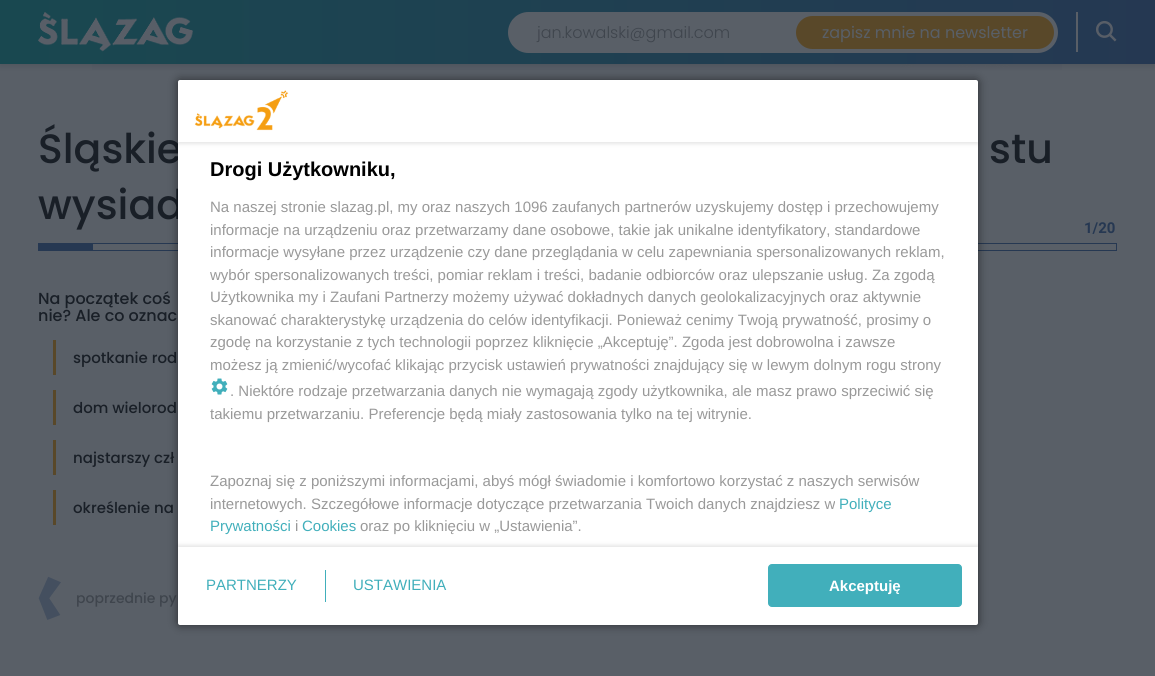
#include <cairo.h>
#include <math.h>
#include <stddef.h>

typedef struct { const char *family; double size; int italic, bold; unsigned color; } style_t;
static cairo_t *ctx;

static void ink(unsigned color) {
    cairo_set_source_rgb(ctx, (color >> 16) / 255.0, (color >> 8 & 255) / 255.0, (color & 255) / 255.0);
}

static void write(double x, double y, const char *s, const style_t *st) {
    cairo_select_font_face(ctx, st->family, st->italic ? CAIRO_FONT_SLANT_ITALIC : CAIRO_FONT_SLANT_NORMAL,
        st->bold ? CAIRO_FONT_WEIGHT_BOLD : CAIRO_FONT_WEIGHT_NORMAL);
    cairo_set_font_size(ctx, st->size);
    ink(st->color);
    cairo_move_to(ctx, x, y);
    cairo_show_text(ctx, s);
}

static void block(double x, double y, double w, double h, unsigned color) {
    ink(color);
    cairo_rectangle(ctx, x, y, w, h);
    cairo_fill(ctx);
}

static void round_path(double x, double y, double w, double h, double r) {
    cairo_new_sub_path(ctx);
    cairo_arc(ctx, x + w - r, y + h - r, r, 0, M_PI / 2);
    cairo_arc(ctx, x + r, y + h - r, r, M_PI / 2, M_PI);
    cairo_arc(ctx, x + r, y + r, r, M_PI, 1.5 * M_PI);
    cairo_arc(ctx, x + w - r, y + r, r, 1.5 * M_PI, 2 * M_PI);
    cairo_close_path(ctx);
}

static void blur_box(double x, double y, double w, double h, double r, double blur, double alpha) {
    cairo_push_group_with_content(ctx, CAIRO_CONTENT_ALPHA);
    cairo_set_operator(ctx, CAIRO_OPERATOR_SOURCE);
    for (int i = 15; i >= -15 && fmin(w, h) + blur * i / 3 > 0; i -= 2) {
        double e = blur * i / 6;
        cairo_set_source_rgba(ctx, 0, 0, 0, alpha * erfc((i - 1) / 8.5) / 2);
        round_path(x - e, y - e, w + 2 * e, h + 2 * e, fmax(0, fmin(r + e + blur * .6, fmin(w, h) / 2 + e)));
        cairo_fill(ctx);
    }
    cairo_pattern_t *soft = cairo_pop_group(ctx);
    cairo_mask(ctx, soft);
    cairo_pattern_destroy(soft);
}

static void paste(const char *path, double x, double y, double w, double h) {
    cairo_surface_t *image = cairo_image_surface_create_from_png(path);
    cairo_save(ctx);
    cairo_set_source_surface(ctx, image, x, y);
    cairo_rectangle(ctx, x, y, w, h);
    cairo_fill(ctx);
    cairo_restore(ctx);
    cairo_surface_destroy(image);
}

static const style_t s1 = {"Poppins Light", 16, 0, 0, 0x3f454d};
static const style_t s2 = {"Poppins", 16, 0, 0, 0x595f67};
static const style_t s3 = {"Poppins Medium", 41, 0, 0, 0x191f27};
static const style_t s4 = {"Roboto", 15, 0, 1, 0x263852};
static const style_t s5 = {"Poppins Medium", 16, 0, 0, 0x191f27};
static const style_t s6 = {"Poppins Medium", 15, 0, 0, 0x191f27};
static const style_t s7 = {"Poppins Medium", 14, 0, 0, 0x3f454d};
static const style_t s8 = {"Liberation Sans", 20, 0, 1, 0x000000};
static const style_t s9 = {"Liberation Sans", 15, 0, 0, 0x999999};
static const style_t s10 = {"Liberation Sans", 15, 0, 0, 0x41afbb};
static const style_t s11 = {"Liberation Sans", 15, 0, 1, 0xffffff};

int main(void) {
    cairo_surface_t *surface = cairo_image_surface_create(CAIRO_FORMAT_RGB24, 1155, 676);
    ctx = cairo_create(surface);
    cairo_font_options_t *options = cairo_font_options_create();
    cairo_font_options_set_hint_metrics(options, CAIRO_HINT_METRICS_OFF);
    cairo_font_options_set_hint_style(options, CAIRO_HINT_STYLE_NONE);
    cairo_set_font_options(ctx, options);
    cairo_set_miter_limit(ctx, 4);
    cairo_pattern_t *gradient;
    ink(0x595f67);
    cairo_paint(ctx);
    paste("pic3.png", 92, 64, 970, 6);
    ink(0x191f27);
    blur_box(0, 2, 1155, 64, 0, 3, 0.16);
    gradient = cairo_pattern_create_linear(0, 32, 1155, 32);
    cairo_pattern_add_color_stop_rgba(gradient, 0, 0.098, 0.282, 0.314, 1);
    cairo_pattern_add_color_stop_rgba(gradient, 1, 0.145, 0.22, 0.322, 1);
    cairo_set_source(ctx, gradient);
    cairo_pattern_destroy(gradient);
    cairo_rectangle(ctx, 0, 0, 1155, 64);
    cairo_fill(ctx);
    paste("pic1.png", 38, 12, 155, 40);
    ink(0x595f67);
    round_path(508, 12, 550, 41, 20.5);
    cairo_fill(ctx);
    block(512, 20, 1, 25, 0x595f67);
    write(537, 38, "jan.kowalski@gmail.com", &s1);
    ink(0x594829);
    round_path(796, 16, 258, 33, 16.5);
    cairo_fill(ctx);
    write(822, 38, "zapisz mnie na newsletter", &s2);
    block(1076, 12, 2, 40, 0x595f67);
    paste("pic2.png", 1096, 21, 21, 21);
    write(38, 163, "Śląskie", &s3);
    write(989, 163, "stu", &s3);
    write(38, 219, "wysiad", &s3);
    cairo_rectangle(ctx, 38.5, 243.5, 1078, 7);
    ink(0x263852);
    cairo_set_line_width(ctx, 1);
    cairo_stroke(ctx);
    write(1084, 233, "1/20", &s4);
    block(39, 244, 54, 6, 0x263852);
    write(38, 304, "Na początek coś", &s5);
    write(38, 321, "nie? Ale co oznac", &s5);
    block(53, 340, 3, 35, 0x594829);
    write(73, 363, "spotkanie rod", &s6);
    block(53, 390, 3, 35, 0x594829);
    write(73, 413, "dom wielorod", &s6);
    block(53, 440, 3, 35, 0x594829);
    write(73, 463, "najstarszy czł", &s6);
    block(53, 490, 3, 35, 0x594829);
    write(73, 513, "określenie na", &s6);
    paste("pic4.png", 38, 576, 23, 44);
    write(76, 603, "poprzednie py", &s7);
    ink(0x000000);
    blur_box(178, 80, 800, 545, 2, 5, 0.5);
    ink(0xffffff);
    round_path(178, 80, 800, 545, 2);
    cairo_fill(ctx);
    cairo_save(ctx);
    cairo_set_fill_rule(ctx, CAIRO_FILL_RULE_EVEN_ODD);
    cairo_new_path(ctx);
    cairo_move_to(ctx, 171, 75);
    cairo_line_to(ctx, 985, 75);
    cairo_line_to(ctx, 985, 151);
    cairo_line_to(ctx, 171, 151);
    cairo_close_path(ctx);
    cairo_move_to(ctx, 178, 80);
    cairo_line_to(ctx, 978, 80);
    cairo_line_to(ctx, 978, 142);
    cairo_line_to(ctx, 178, 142);
    cairo_close_path(ctx);
    cairo_clip(ctx);
    ink(0x000000);
    blur_box(178, 82, 800, 62, 0, 2, 0.1);
    cairo_restore(ctx);
    paste("pic5.png", 194, 90, 95, 41);
    write(210, 176, "Drogi Użytkowniku,", &s8);
    write(210, 212, "Na naszej stronie slazag.pl, my oraz naszych 1096 zaufanych partnerów uzyskujemy dostęp i przechowujemy", &s9);
    write(210, 235, "informacje na urządzeniu oraz przetwarzamy dane osobowe, takie jak unikalne identyfikatory, standardowe", &s9);
    write(210, 257, "informacje wysyłane przez urządzenie czy dane przeglądania w celu zapewniania spersonalizowanych reklam,", &s9);
    write(210, 280, "wybór spersonalizowanych treści, pomiar reklam i treści, badanie odbiorców oraz ulepszanie usług. Za zgodą", &s9);
    write(210, 302, "Użytkownika my i Zaufani Partnerzy możemy używać dokładnych danych geolokalizacyjnych oraz aktywnie", &s9);
    write(210, 325, "skanować charakterystykę urządzenia do celów identyfikacji. Ponieważ cenimy Twoją prywatność, prosimy o", &s9);
    write(210, 347, "zgodę na korzystanie z tych technologii poprzez kliknięcie „Akceptuję”. Zgoda jest dobrowolna i zawsze", &s9);
    write(210, 370, "możesz ją zmienić/wycofać klikając przycisk ustawień prywatności znajdujący się w lewym dolnym rogu strony", &s9);
    paste("pic6.png", 211, 378, 17, 17);
    write(230, 396, ". Niektóre rodzaje przetwarzania danych nie wymagają zgody użytkownika, ale masz prawo sprzeciwić się", &s9);
    write(210, 419, "takiemu przetwarzaniu. Preferencje będą miały zastosowania tylko na tej witrynie.", &s9);
    write(210, 486, "Zapoznaj się z poniższymi informacjami, abyś mógł świadomie i komfortowo korzystać z naszych serwisów", &s9);
    write(210, 509, "internetowych. Szczegółowe informacje dotyczące przetwarzania Twoich danych znajdziesz w", &s9);
    write(839, 509, "Polityce", &s10);
    write(210, 531, "Prywatności", &s10);
    write(295, 531, "i", &s9);
    write(302, 531, "Cookies", &s10);
    write(360, 531, "oraz po kliknięciu w „Ustawienia”.", &s9);
    cairo_save(ctx);
    cairo_set_fill_rule(ctx, CAIRO_FILL_RULE_EVEN_ODD);
    cairo_new_path(ctx);
    cairo_move_to(ctx, 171, 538);
    cairo_line_to(ctx, 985, 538);
    cairo_line_to(ctx, 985, 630);
    cairo_line_to(ctx, 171, 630);
    cairo_close_path(ctx);
    cairo_move_to(ctx, 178, 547);
    cairo_line_to(ctx, 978, 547);
    cairo_line_to(ctx, 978, 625);
    cairo_line_to(ctx, 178, 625);
    cairo_close_path(ctx);
    cairo_clip(ctx);
    ink(0x000000);
    blur_box(178, 545, 800, 78, 0, 2, 0.1);
    cairo_restore(ctx);
    write(206, 590, "PARTNERZY", &s10);
    block(325, 570, 1, 32, 0x41afbb);
    write(353, 590, "USTAWIENIA", &s10);
    round_path(768.5, 564.5, 193, 42, 3.5);
    cairo_fill_preserve(ctx);
    cairo_stroke(ctx);
    write(829, 591, "Akceptuję", &s11);
    cairo_surface_write_to_png(surface, "screenshot.png");
    cairo_font_options_destroy(options);
    cairo_destroy(ctx);
    cairo_surface_destroy(surface);
    return 0;
}
